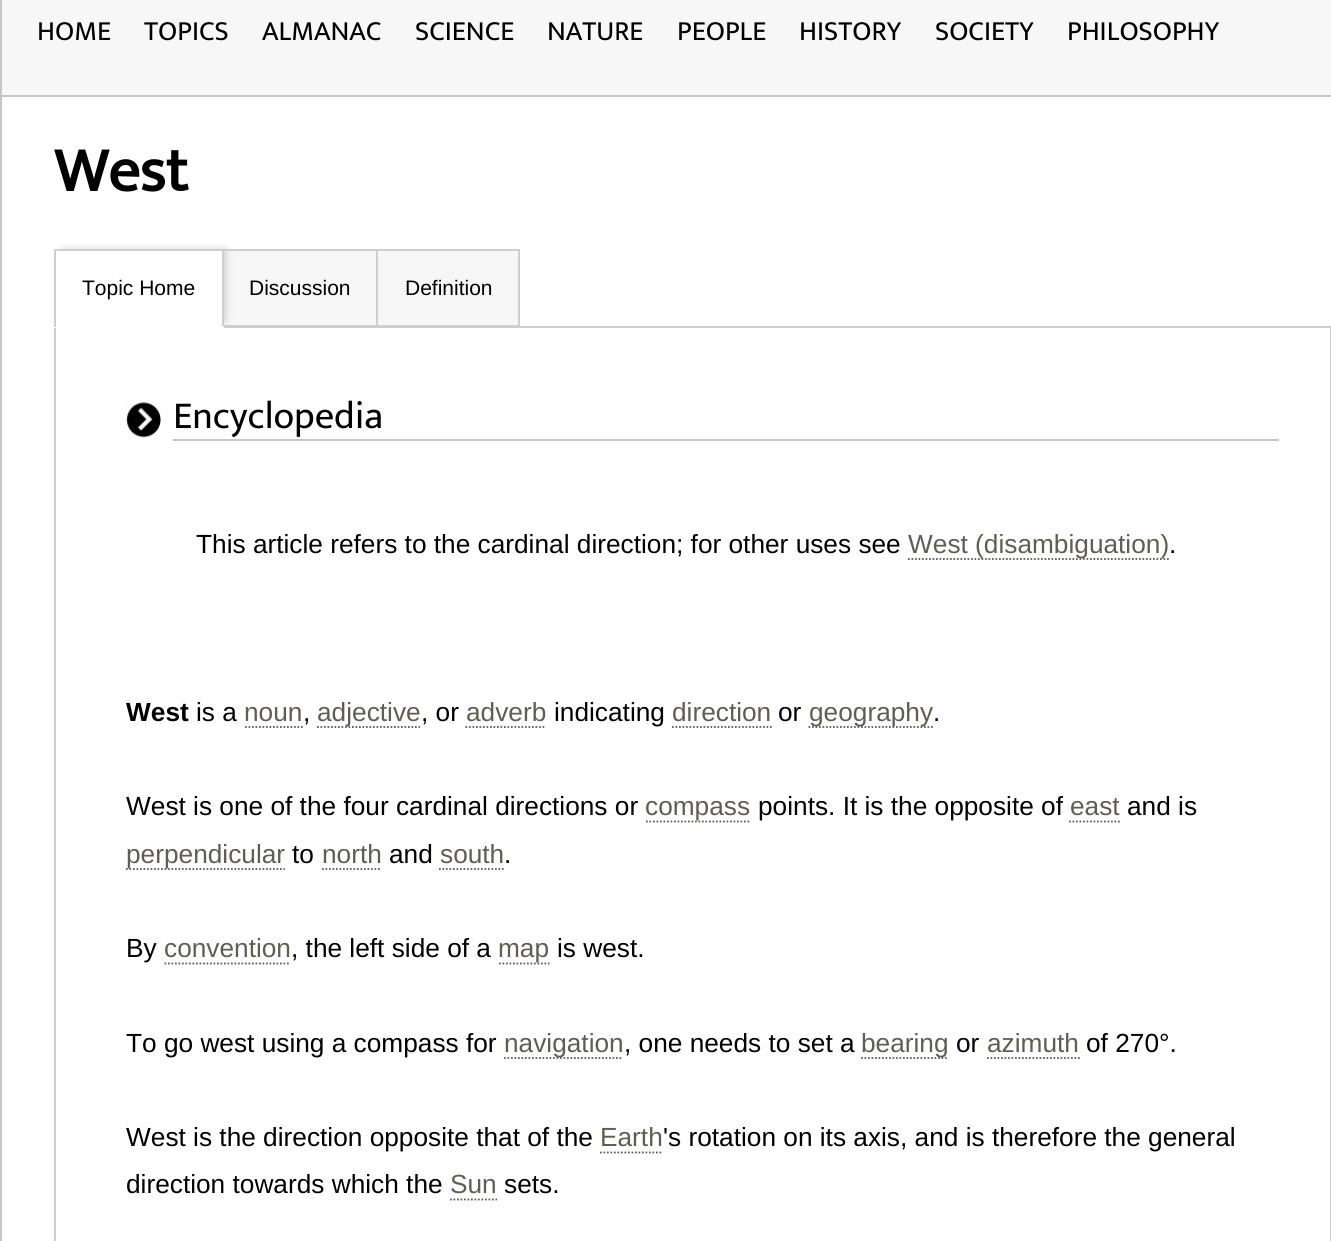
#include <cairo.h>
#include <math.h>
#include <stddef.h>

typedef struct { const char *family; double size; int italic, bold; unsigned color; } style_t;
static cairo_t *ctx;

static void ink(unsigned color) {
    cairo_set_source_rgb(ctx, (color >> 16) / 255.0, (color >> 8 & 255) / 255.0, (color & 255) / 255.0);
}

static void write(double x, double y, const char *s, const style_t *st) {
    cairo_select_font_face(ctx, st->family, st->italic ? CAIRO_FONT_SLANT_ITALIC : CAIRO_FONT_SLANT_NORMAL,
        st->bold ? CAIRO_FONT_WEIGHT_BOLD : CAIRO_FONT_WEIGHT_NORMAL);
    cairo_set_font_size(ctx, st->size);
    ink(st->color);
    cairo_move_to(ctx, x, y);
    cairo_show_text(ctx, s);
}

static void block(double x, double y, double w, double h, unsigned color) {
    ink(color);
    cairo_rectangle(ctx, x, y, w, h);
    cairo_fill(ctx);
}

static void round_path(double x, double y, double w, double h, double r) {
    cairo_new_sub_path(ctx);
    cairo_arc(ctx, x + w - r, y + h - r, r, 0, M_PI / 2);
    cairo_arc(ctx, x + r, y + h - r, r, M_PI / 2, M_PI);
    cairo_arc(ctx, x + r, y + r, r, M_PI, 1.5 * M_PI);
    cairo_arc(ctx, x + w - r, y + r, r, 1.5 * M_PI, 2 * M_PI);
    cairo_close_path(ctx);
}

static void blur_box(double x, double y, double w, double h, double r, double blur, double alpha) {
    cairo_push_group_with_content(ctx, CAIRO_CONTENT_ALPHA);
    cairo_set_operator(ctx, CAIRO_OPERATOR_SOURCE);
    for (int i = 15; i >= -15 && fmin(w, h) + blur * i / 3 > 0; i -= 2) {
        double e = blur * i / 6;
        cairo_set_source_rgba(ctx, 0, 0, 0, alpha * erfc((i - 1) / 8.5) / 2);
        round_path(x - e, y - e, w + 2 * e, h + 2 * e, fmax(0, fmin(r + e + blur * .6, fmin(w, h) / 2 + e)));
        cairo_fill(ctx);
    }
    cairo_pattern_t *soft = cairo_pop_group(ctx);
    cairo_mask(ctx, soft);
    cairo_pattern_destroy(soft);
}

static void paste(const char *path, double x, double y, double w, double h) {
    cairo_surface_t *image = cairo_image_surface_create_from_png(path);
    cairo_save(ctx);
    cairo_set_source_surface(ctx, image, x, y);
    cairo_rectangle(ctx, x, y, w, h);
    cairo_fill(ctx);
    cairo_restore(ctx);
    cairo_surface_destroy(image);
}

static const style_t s1 = {"Mukta", 28, 0, 0, 0x000000};
static const style_t s2 = {"Mukta", 63, 0, 1, 0x000000};
static const style_t s3 = {"Liberation Sans", 21, 0, 0, 0x000000};
static const style_t s4 = {"Mukta", 38.5, 0, 0, 0x000000};
static const style_t s5 = {"Liberation Sans", 26.25, 0, 0, 0x000000};
static const style_t s6 = {"Liberation Sans", 26.25, 0, 0, 0x605e53};
static const style_t s7 = {"Liberation Sans", 26.25, 0, 1, 0x000000};

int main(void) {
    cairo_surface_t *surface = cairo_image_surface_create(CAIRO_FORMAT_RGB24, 1331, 1241);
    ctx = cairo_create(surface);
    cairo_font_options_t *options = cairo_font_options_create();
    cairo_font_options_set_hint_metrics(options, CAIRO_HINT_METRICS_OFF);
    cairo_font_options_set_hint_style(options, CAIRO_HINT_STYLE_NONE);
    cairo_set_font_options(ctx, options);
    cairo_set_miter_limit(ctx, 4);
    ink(0xffffff);
    cairo_paint(ctx);
    block(2, 0, 1329, 95, 0xf7f7f7);
    block(0, 95, 1331, 2, 0xc6c6c6);
    write(37, 40, "HOME", &s1);
    write(144, 40, "TOPICS", &s1);
    write(262, 40, "ALMANAC", &s1);
    write(415, 40, "SCIENCE", &s1);
    write(547, 40, "NATURE", &s1);
    write(677, 40, "PEOPLE", &s1);
    write(799, 40, "HISTORY", &s1);
    write(935, 40, "SOCIETY", &s1);
    write(1067, 40, "PHILOSOPHY", &s1);
    block(0, 0, 2, 1241, 0xc6c6c6);
    write(54, 191, "West", &s2);
    block(224, 251, 152, 74, 0xf6f6f6);
    cairo_rectangle(ctx, 55, 327, 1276, 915);
    ink(0xcecece);
    cairo_stroke(ctx);
    cairo_rectangle(ctx, 222, 250, 157, 76);
    cairo_stroke(ctx);
    ink(0xd1d1d1);
    blur_box(63, 249, 163, 71, 0, 3.5, 1);
    block(57, 251, 165, 75, 0xffffff);
    block(54, 249, 170, 2, 0xcecece);
    block(223, 249, 1, 78, 0xcecece);
    block(54, 326, 170, 2, 0xffffff);
    block(54, 249, 2, 78, 0xcecece);
    write(82, 295, "Topic Home", &s3);
    write(249, 295, "Discussion", &s3);
    ink(0xf6f6f6);
    cairo_rectangle(ctx, 377, 250, 142, 76);
    cairo_fill_preserve(ctx);
    ink(0xcecece);
    cairo_stroke(ctx);
    write(405, 295, "Definition", &s3);
    paste("pic1.png", 126, 402, 35, 36);
    block(173, 439, 1106, 2, 0xc6c6c6);
    write(173, 428, "Encyclopedia", &s4);
    write(196, 553, "This article refers to the cardinal direction; for other uses see", &s5);
    cairo_new_path(ctx);
    cairo_move_to(ctx, 908, 559);
    cairo_line_to(ctx, 1169, 559);
    ink(0x605e53);
    cairo_set_line_width(ctx, 1.8);
    cairo_set_dash(ctx, (double[]){1.75, 1.75}, 2, 0);
    cairo_stroke(ctx);
    write(908, 553, "West (disambiguation)", &s6);
    write(1169, 553, ".", &s5);
    write(126, 721, "West", &s7);
    write(196, 721, "is a", &s5);
    write(244, 721, "noun", &s6);
    cairo_new_path(ctx);
    cairo_move_to(ctx, 245, 727);
    cairo_line_to(ctx, 303, 727);
    cairo_stroke(ctx);
    write(303, 721, ",", &s5);
    cairo_new_path(ctx);
    cairo_move_to(ctx, 317, 727);
    cairo_line_to(ctx, 420, 727);
    ink(0x605e53);
    cairo_stroke(ctx);
    write(317, 721, "adjective", &s6);
    write(421, 721, ", or", &s5);
    write(466, 721, "adverb", &s6);
    cairo_new_path(ctx);
    cairo_move_to(ctx, 465.5, 727);
    cairo_line_to(ctx, 546, 727);
    cairo_stroke(ctx);
    write(554, 721, "indicating", &s5);
    write(672, 721, "direction", &s6);
    cairo_new_path(ctx);
    cairo_move_to(ctx, 672, 727);
    cairo_line_to(ctx, 772, 727);
    cairo_stroke(ctx);
    write(778, 721, "or", &s5);
    cairo_new_path(ctx);
    cairo_move_to(ctx, 808.5, 727);
    cairo_line_to(ctx, 933, 727);
    ink(0x605e53);
    cairo_stroke(ctx);
    write(809, 721, "geography", &s6);
    write(933, 721, ".", &s5);
    write(126, 815, "West is one of the four cardinal directions or", &s5);
    cairo_new_path(ctx);
    cairo_move_to(ctx, 646, 821.5);
    cairo_line_to(ctx, 751, 821.5);
    ink(0x605e53);
    cairo_stroke(ctx);
    write(645, 815, "compass", &s6);
    write(758, 815, "points. It is the opposite of", &s5);
    write(1070, 815, "east", &s6);
    cairo_new_path(ctx);
    cairo_move_to(ctx, 1069, 821.5);
    cairo_line_to(ctx, 1120, 821.5);
    cairo_stroke(ctx);
    write(1127, 815, "and is", &s5);
    cairo_new_path(ctx);
    cairo_move_to(ctx, 126, 869);
    cairo_line_to(ctx, 285, 869);
    ink(0x605e53);
    cairo_stroke(ctx);
    write(126, 863, "perpendicular", &s6);
    write(292, 863, "to", &s5);
    write(322, 863, "north", &s6);
    cairo_new_path(ctx);
    cairo_move_to(ctx, 322, 869);
    cairo_line_to(ctx, 381.5, 869);
    cairo_stroke(ctx);
    write(389, 863, "and", &s5);
    write(440, 863, "south", &s6);
    cairo_new_path(ctx);
    cairo_move_to(ctx, 439, 869);
    cairo_line_to(ctx, 504, 869);
    cairo_stroke(ctx);
    write(504, 863, ".", &s5);
    write(126, 957, "By", &s5);
    write(164, 957, "convention", &s6);
    cairo_new_path(ctx);
    cairo_move_to(ctx, 164.5, 963.5);
    cairo_line_to(ctx, 290.5, 963.5);
    cairo_stroke(ctx);
    write(291, 957, ", the left side of a", &s5);
    cairo_new_path(ctx);
    cairo_move_to(ctx, 499, 963.5);
    cairo_line_to(ctx, 549.5, 963.5);
    ink(0x605e53);
    cairo_stroke(ctx);
    write(498, 957, "map", &s6);
    write(557, 957, "is west.", &s5);
    write(126, 1052, "To go west using a compass for", &s5);
    cairo_new_path(ctx);
    cairo_move_to(ctx, 504, 1058);
    cairo_line_to(ctx, 623, 1058);
    ink(0x605e53);
    cairo_stroke(ctx);
    write(504, 1052, "navigation", &s6);
    write(624, 1052, ", one needs to set a", &s5);
    cairo_new_path(ctx);
    cairo_move_to(ctx, 861, 1058);
    cairo_line_to(ctx, 948.5, 1058);
    ink(0x605e53);
    cairo_stroke(ctx);
    write(861, 1052, "bearing", &s6);
    write(956, 1052, "or", &s5);
    write(987, 1052, "azimuth", &s6);
    cairo_new_path(ctx);
    cairo_move_to(ctx, 987, 1058);
    cairo_line_to(ctx, 1080, 1058);
    cairo_stroke(ctx);
    write(1086, 1052, "of 270°.", &s5);
    write(126, 1146, "West is the direction opposite that of the", &s5);
    write(600, 1146, "Earth", &s6);
    cairo_new_path(ctx);
    cairo_move_to(ctx, 600, 1152.5);
    cairo_line_to(ctx, 663, 1152.5);
    cairo_stroke(ctx);
    write(663, 1146, "'s rotation on its axis, and is therefore the general", &s5);
    write(126, 1193, "direction towards which the", &s5);
    write(450, 1193, "Sun", &s6);
    cairo_new_path(ctx);
    cairo_move_to(ctx, 450, 1199.5);
    cairo_line_to(ctx, 497, 1199.5);
    cairo_stroke(ctx);
    write(504, 1193, "sets.", &s5);
    cairo_surface_write_to_png(surface, "screenshot.png");
    cairo_font_options_destroy(options);
    cairo_destroy(ctx);
    cairo_surface_destroy(surface);
    return 0;
}
